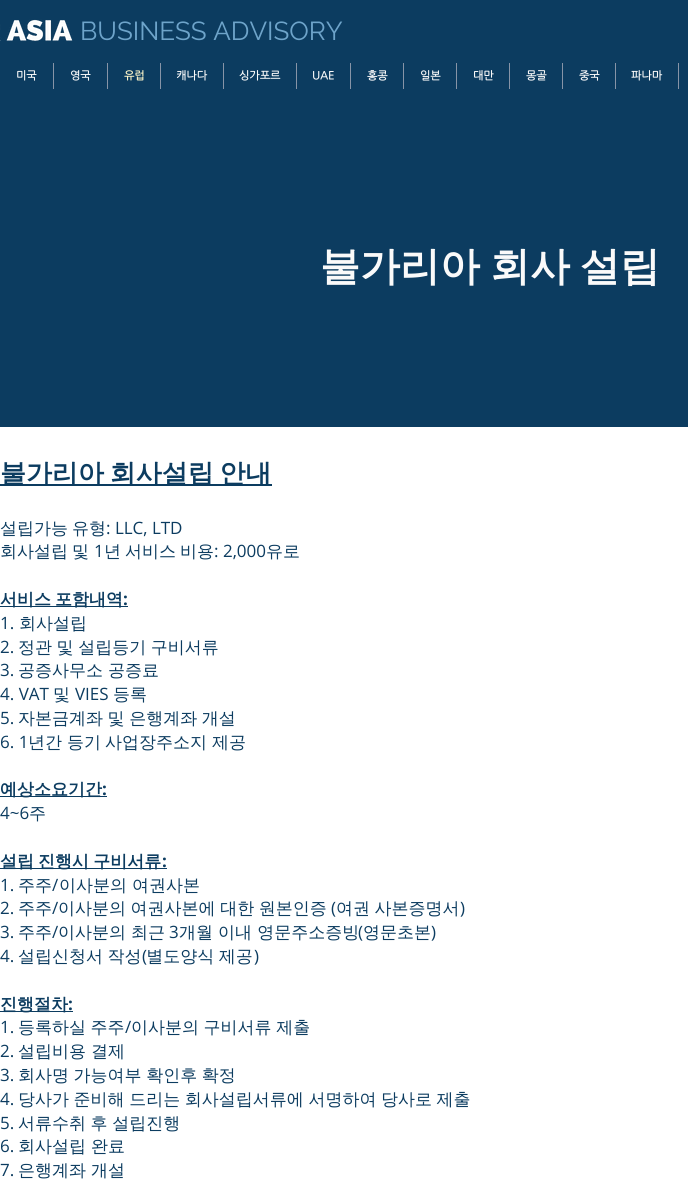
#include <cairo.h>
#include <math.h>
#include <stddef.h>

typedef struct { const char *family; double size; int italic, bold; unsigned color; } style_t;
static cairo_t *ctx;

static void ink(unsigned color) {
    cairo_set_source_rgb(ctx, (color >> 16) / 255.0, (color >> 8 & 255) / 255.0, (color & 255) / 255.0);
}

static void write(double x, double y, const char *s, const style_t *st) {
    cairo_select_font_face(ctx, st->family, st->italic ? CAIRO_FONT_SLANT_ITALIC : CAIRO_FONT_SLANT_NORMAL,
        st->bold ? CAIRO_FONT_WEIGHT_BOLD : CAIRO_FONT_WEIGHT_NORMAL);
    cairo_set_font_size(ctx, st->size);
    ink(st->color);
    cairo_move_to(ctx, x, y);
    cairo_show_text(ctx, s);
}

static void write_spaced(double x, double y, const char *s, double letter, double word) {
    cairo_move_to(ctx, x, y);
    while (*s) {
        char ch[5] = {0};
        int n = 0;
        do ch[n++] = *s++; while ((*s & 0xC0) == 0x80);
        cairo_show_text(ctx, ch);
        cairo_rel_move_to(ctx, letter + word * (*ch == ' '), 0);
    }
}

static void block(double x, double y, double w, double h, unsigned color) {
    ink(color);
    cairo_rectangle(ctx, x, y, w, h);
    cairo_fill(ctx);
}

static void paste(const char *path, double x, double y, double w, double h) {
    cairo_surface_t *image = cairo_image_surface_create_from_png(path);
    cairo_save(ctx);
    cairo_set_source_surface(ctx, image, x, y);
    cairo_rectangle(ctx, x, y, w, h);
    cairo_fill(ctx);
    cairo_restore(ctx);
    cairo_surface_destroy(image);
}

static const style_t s1 = {"Raleway", 26, 0, 0, 0x6ea4ca};
static const style_t s2 = {"NanumGothic", 11, 0, 1, 0xfafafa};
static const style_t s3 = {"NanumGothic", 11, 0, 1, 0xfff7ca};
static const style_t s4 = {"WenQuanYi Zen Hei Medium", 17, 0, 0, 0x0c3c60};
static const style_t s5 = {"Open Sans", 17, 0, 0, 0x0c3c60};
static const style_t s6 = {"Open Sans", 17, 0, 1, 0x0c3c60};
static const style_t s7 = {"WenQuanYi Zen Hei", 17, 0, 1, 0x0c3c60};

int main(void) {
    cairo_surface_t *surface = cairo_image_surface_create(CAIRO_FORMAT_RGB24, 688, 1187);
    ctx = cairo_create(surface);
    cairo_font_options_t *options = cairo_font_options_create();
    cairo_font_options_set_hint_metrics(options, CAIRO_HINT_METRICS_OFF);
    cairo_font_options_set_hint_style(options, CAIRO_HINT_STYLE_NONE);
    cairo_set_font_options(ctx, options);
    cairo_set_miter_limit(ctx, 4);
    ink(0xffffff);
    cairo_paint(ctx);
    block(0, 0, 688, 427, 0x0c3c60);
    paste("pic1.png", 0, 19, 73, 22);
    write(80, 40, "BUSINESS ADVISORY", &s1);
    write(16, 79, "미국", &s2);
    block(53, 63, 1, 26, 0x8794a7);
    write(70, 79, "영국", &s2);
    block(107, 63, 1, 26, 0x8794a7);
    write(124, 79, "유럽", &s3);
    block(160, 63, 1, 26, 0x8794a7);
    write(176, 79, "캐나다", &s2);
    block(223, 63, 1, 26, 0x8794a7);
    write(239, 79, "싱가포르", &s2);
    block(296, 63, 1, 26, 0x8794a7);
    write(312, 79, "UAE", &s2);
    block(350, 63, 1, 26, 0x8794a7);
    write(367, 79, "홍콩", &s2);
    block(403, 63, 1, 26, 0x8794a7);
    write(420, 79, "일본", &s2);
    block(456, 63, 1, 26, 0x8794a7);
    write(473, 79, "대만", &s2);
    block(509, 63, 1, 26, 0x8794a7);
    write(526, 79, "몽골", &s2);
    block(562, 63, 1, 26, 0x8794a7);
    write(579, 79, "중국", &s2);
    block(615, 63, 1, 26, 0x8794a7);
    write(631, 79, "파나마", &s2);
    block(678, 63, 1, 26, 0x8794a7);
    cairo_select_font_face(ctx, "WenQuanYi Zen Hei", CAIRO_FONT_SLANT_NORMAL, CAIRO_FONT_WEIGHT_BOLD);
    cairo_set_font_size(ctx, 40);
    ink(0xfafafa);
    write_spaced(320, 280, "불가리아 회사 설립", 0, -2);
    block(0, 484, 272, 2, 0x0c3c60);
    cairo_set_font_size(ctx, 26);
    write_spaced(0, 482, "불가리아 회사설립 안내", 0, -2);
    write(0, 534, "설립가능", &s4);
    write(72, 534, "유형", &s4);
    write(106, 534, ": LLC, LTD", &s5);
    write(0, 557, "회사설립", &s4);
    write(72, 557, "및", &s4);
    write(94, 557, "1", &s5);
    write(104, 557, "년", &s4);
    write(125, 557, "서비스", &s4);
    write(180, 557, "비용", &s4);
    write(214, 557, ": 2,000", &s5);
    write(266, 557, "유로", &s4);
    block(0, 606, 128, 1, 0x0c3c60);
    cairo_select_font_face(ctx, "WenQuanYi Zen Hei", CAIRO_FONT_SLANT_NORMAL, CAIRO_FONT_WEIGHT_BOLD);
    write_spaced(0, 605, "서비스 포함내역", 0, -1);
    write(123, 605, ":", &s6);
    write(0, 629, "1.", &s5);
    write(19, 629, "회사설립", &s4);
    write(0, 653, "2.", &s5);
    cairo_select_font_face(ctx, "WenQuanYi Zen Hei Medium", CAIRO_FONT_SLANT_NORMAL, CAIRO_FONT_WEIGHT_NORMAL);
    write_spaced(18, 653, "정관 및 설립등기 구비서류", 0, -0.5);
    write(0, 676, "3.", &s5);
    write(18, 676, "공증사무소 공증료", &s4);
    write(0, 700, "4. VAT", &s5);
    write(53, 700, "및", &s4);
    write(75, 700, "VIES", &s5);
    write(113, 700, "등록", &s4);
    write(0, 724, "5.", &s5);
    cairo_select_font_face(ctx, "WenQuanYi Zen Hei Medium", CAIRO_FONT_SLANT_NORMAL, CAIRO_FONT_WEIGHT_NORMAL);
    write_spaced(18, 724, "자본금계좌 및 은행계좌 개설", 0, -0.5);
    write(0, 748, "6. 1", &s5);
    write(28, 748, "년간", &s4);
    write(67, 748, "등기", &s4);
    write(105, 748, "사업장주소지", &s4);
    write(212, 748, "제공", &s4);
    block(0, 796, 107, 1, 0x0c3c60);
    write(0, 795, "예상소요기간", &s7);
    write(102, 795, ":", &s6);
    write(0, 819, "4~6", &s5);
    write(29, 819, "주", &s4);
    block(0, 868, 167, 1, 0x0c3c60);
    cairo_select_font_face(ctx, "WenQuanYi Zen Hei", CAIRO_FONT_SLANT_NORMAL, CAIRO_FONT_WEIGHT_BOLD);
    write_spaced(0, 867, "설립 진행시 구비서류", 0, -1);
    write(162, 867, ":", &s6);
    write(0, 891, "1.", &s5);
    write(18, 891, "주주", &s4);
    write(52, 891, "/", &s5);
    write(59, 891, "이사분의 여권사본", &s4);
    write(0, 914, "2.", &s5);
    write(18, 914, "주주", &s4);
    write(52, 914, "/", &s5);
    cairo_select_font_face(ctx, "WenQuanYi Zen Hei Medium", CAIRO_FONT_SLANT_NORMAL, CAIRO_FONT_WEIGHT_NORMAL);
    write_spaced(58, 914, "이사분의 여권사본에 대한 원본인증", 0, -0.5);
    write(331, 914, "(", &s5);
    cairo_select_font_face(ctx, "WenQuanYi Zen Hei Medium", CAIRO_FONT_SLANT_NORMAL, CAIRO_FONT_WEIGHT_NORMAL);
    write_spaced(336, 914, "여권 사본증명서", 0, -0.5);
    write(460, 914, ")", &s5);
    write(0, 938, "3.", &s5);
    write(18, 938, "주주", &s4);
    write(52, 938, "/", &s5);
    write(58, 938, "이사분의 최근", &s4);
    write(169, 938, "3", &s5);
    write(179, 938, "개월 이내 영문주소증빙", &s4);
    write(358, 938, "(", &s5);
    write(363, 938, "영문초본", &s4);
    write(431, 938, ")", &s5);
    write(0, 962, "4.", &s5);
    cairo_select_font_face(ctx, "WenQuanYi Zen Hei Medium", CAIRO_FONT_SLANT_NORMAL, CAIRO_FONT_WEIGHT_NORMAL);
    write_spaced(18, 962, "설립신청서 작성 별도양식 제공", 0, -0.5);
    write(142, 962, "(", &s5);
    write(254, 962, ")", &s5);
    block(0, 1011, 73, 1, 0x0c3c60);
    write(0, 1010, "진행절차", &s7);
    write(68, 1010, ":", &s6);
    write(0, 1033, "1.", &s5);
    cairo_select_font_face(ctx, "WenQuanYi Zen Hei Medium", CAIRO_FONT_SLANT_NORMAL, CAIRO_FONT_WEIGHT_NORMAL);
    write_spaced(18, 1033, "등록하실 주주", 0, -0.5);
    write(125, 1033, "/", &s5);
    cairo_select_font_face(ctx, "WenQuanYi Zen Hei Medium", CAIRO_FONT_SLANT_NORMAL, CAIRO_FONT_WEIGHT_NORMAL);
    write_spaced(131, 1033, "이사분의 구비서류 제출", 0, -0.5);
    write(0, 1057, "2.", &s5);
    write(18, 1057, "설립비용 결제", &s4);
    write(0, 1081, "3.", &s5);
    cairo_select_font_face(ctx, "WenQuanYi Zen Hei Medium", CAIRO_FONT_SLANT_NORMAL, CAIRO_FONT_WEIGHT_NORMAL);
    write_spaced(18, 1081, "회사명 가능여부 확인후 확정", 0, -0.5);
    write(0, 1105, "4.", &s5);
    cairo_select_font_face(ctx, "WenQuanYi Zen Hei Medium", CAIRO_FONT_SLANT_NORMAL, CAIRO_FONT_WEIGHT_NORMAL);
    write_spaced(18, 1105, "당사가 준비해 드리는 회사설립서류에 서명하여 당사로 제출", 0, -0.5);
    write(0, 1129, "5.", &s5);
    cairo_select_font_face(ctx, "WenQuanYi Zen Hei Medium", CAIRO_FONT_SLANT_NORMAL, CAIRO_FONT_WEIGHT_NORMAL);
    write_spaced(18, 1129, "서류수취 후 설립진행", 0, -0.5);
    write(0, 1152, "6.", &s5);
    write(18, 1152, "회사설립 완료", &s4);
    write(0, 1176, "7.", &s5);
    write(18, 1176, "은행계좌 개설", &s4);
    cairo_surface_write_to_png(surface, "screenshot.png");
    cairo_font_options_destroy(options);
    cairo_destroy(ctx);
    cairo_surface_destroy(surface);
    return 0;
}
